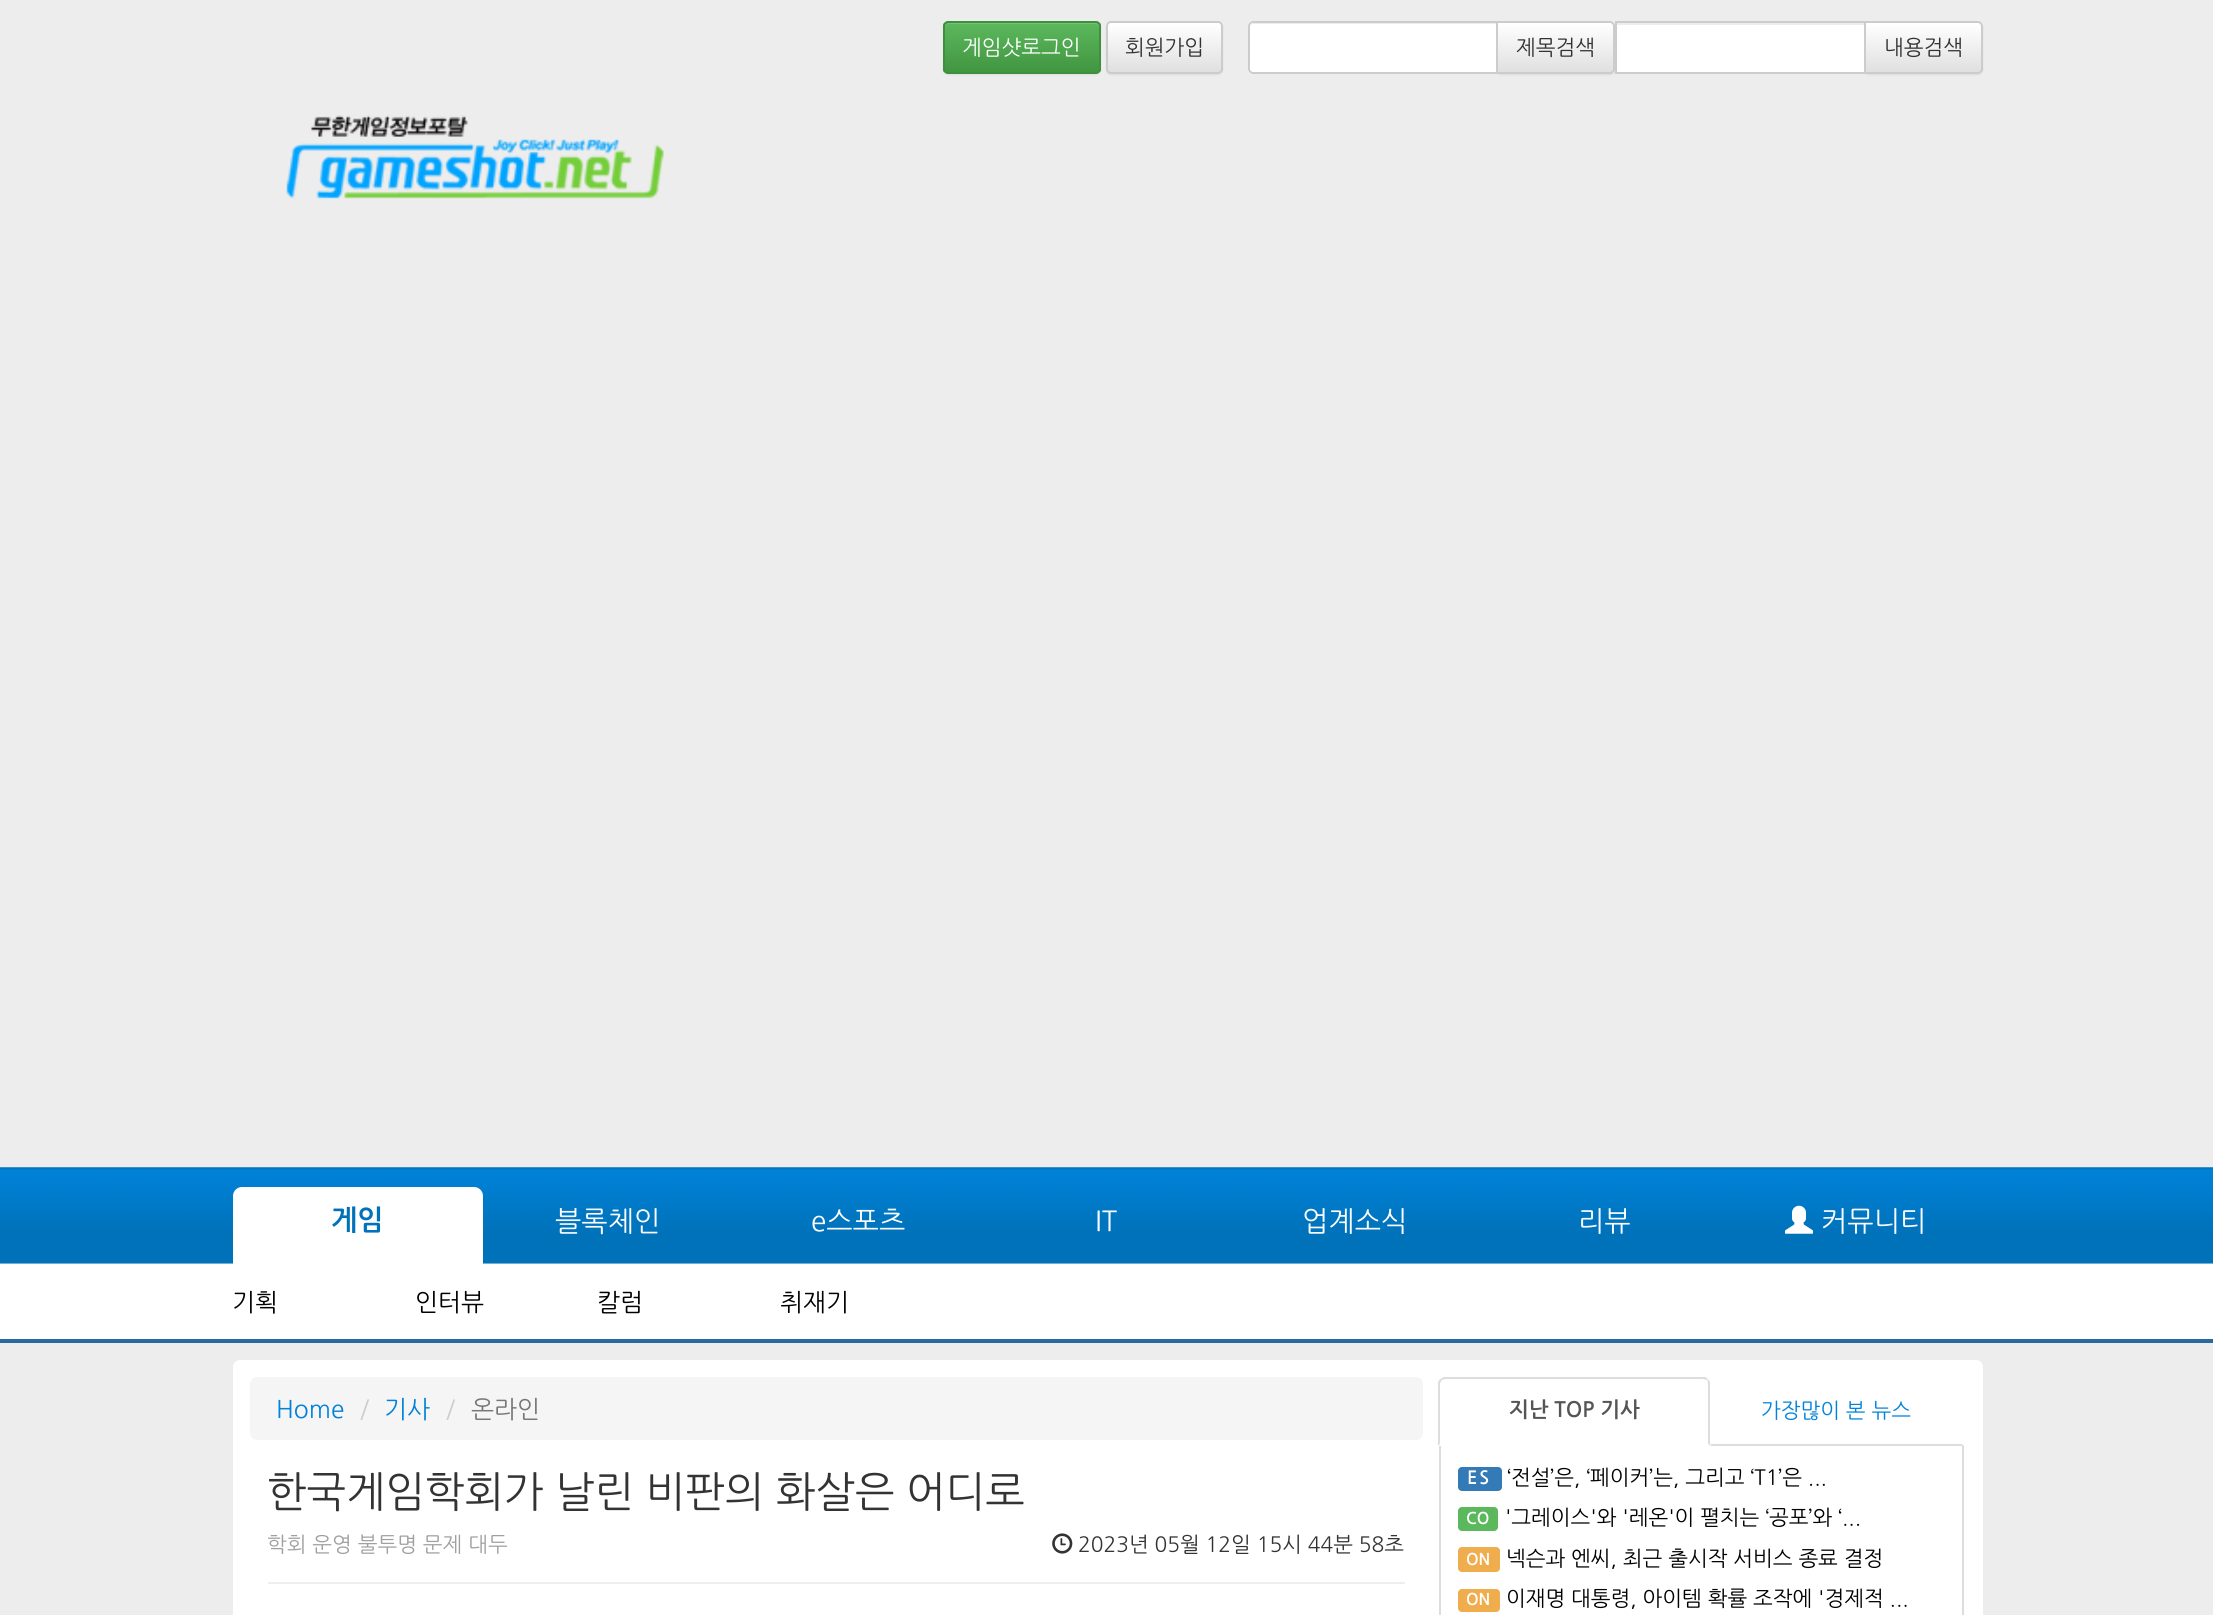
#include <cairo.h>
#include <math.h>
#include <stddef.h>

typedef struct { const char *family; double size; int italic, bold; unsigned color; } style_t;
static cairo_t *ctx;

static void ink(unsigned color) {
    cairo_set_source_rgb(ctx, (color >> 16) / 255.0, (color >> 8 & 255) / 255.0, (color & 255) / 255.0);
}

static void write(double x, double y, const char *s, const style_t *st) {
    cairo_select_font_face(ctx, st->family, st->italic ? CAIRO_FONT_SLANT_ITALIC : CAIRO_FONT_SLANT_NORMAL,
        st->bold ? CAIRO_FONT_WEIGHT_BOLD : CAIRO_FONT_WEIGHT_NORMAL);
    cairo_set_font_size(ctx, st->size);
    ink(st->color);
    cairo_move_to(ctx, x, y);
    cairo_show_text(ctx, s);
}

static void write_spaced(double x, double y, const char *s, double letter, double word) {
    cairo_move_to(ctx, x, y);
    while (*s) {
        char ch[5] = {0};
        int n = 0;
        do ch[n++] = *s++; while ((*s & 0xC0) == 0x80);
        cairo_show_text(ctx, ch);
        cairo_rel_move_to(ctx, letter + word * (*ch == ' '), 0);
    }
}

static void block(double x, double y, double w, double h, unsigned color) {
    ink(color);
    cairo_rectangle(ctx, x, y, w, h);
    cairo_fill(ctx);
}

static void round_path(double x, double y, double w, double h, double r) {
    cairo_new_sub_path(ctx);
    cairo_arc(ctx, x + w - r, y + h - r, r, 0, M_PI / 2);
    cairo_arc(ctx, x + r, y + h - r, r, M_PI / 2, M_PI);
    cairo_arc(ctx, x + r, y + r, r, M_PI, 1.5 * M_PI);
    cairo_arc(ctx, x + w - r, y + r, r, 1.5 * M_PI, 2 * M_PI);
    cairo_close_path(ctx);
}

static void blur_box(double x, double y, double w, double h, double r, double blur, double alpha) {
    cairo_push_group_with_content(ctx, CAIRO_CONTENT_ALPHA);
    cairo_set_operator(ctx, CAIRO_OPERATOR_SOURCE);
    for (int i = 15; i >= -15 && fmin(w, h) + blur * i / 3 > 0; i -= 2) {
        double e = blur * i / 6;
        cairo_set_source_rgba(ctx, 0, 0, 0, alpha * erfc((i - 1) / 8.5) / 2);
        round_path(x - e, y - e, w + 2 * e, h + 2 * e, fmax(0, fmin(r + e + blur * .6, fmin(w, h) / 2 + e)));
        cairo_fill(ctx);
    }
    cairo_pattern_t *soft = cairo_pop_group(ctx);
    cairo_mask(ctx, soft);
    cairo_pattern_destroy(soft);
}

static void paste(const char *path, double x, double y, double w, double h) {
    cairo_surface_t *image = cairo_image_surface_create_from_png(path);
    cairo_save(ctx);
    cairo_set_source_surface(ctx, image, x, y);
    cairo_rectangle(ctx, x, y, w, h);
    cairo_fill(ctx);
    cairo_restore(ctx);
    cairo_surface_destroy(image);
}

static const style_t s1 = {"NanumGothic", 21, 0, 0, 0xffffff};
static const style_t s2 = {"NanumGothic", 21, 0, 0, 0x333333};
static const style_t s3 = {"NanumGothic", 28, 0, 1, 0x0072ba};
static const style_t s4 = {"NanumGothic", 28, 0, 0, 0xffffff};
static const style_t s5 = {"NanumGothic", 24.5, 0, 0, 0x000000};
static const style_t s6 = {"NanumGothic", 24.5, 0, 0, 0x0082d9};
static const style_t s7 = {"NanumGothic", 24.5, 0, 0, 0xcccccc};
static const style_t s8 = {"NanumGothic", 24.5, 0, 0, 0x777777};
static const style_t s9 = {"NanumGothic", 42, 0, 0, 0x333333};
static const style_t s10 = {"NanumGothic", 21, 0, 0, 0xa0a0a0};
static const style_t s11 = {"NanumGothic", 21, 0, 1, 0x555555};
static const style_t s12 = {"NanumGothic", 21, 0, 0, 0x0082d9};
static const style_t s13 = {"NanumGothic", 21, 0, 0, 0x000000};
static const style_t s14 = {"NanumGothic", 16, 0, 1, 0xffffff};

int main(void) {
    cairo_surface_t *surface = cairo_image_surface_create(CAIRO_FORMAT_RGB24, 2213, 1615);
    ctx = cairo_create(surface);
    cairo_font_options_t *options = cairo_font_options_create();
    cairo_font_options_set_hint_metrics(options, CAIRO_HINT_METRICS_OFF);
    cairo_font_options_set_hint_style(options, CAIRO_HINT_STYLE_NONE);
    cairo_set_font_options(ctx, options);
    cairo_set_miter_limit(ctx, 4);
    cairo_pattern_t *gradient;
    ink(0xededed);
    cairo_paint(ctx);
    ink(0x000000);
    blur_box(943, 23, 158, 52, 5, 1, 0.07);
    cairo_save(ctx);
    round_path(943, 21, 158, 53, 5);
    cairo_clip(ctx);
    gradient = cairo_pattern_create_linear(1022, 23, 1022, 72);
    cairo_pattern_add_color_stop_rgba(gradient, 0, 0.361, 0.722, 0.361, 1);
    cairo_pattern_add_color_stop_rgba(gradient, 1, 0.255, 0.588, 0.255, 1);
    cairo_set_source(ctx, gradient);
    cairo_pattern_destroy(gradient);
    cairo_rectangle(ctx, 943, 23, 158, 49);
    cairo_fill(ctx);
    cairo_restore(ctx);
    ink(0x74c374);
    cairo_new_path(ctx);
    cairo_move_to(ctx, 948, 24);
    cairo_line_to(ctx, 1096, 24);
    cairo_curve_to(ctx, 1097, 24, 1099, 26, 1099, 28);
    cairo_curve_to(ctx, 1099, 25, 1098, 23, 1095, 23);
    cairo_line_to(ctx, 948, 23);
    cairo_curve_to(ctx, 946, 24, 945, 26, 945, 28);
    cairo_curve_to(ctx, 945, 26, 947, 24, 948, 24);
    cairo_close_path(ctx);
    cairo_fill(ctx);
    round_path(944, 22, 156, 51, 4);
    ink(0x3e8f3e);
    cairo_stroke(ctx);
    write(962, 54, "게임샷로그인", &s1);
    ink(0x000000);
    blur_box(1106, 23, 117, 52, 5, 1, 0.07);
    cairo_save(ctx);
    round_path(1106, 21, 117, 53, 5);
    cairo_clip(ctx);
    gradient = cairo_pattern_create_linear(1165, 23, 1165, 72);
    cairo_pattern_add_color_stop_rgba(gradient, 0, 1, 1, 1, 1);
    cairo_pattern_add_color_stop_rgba(gradient, 1, 0.878, 0.878, 0.878, 1);
    cairo_set_source(ctx, gradient);
    cairo_pattern_destroy(gradient);
    cairo_rectangle(ctx, 1106, 23, 117, 49);
    cairo_fill(ctx);
    cairo_restore(ctx);
    round_path(1107, 22, 115, 51, 4);
    ink(0xcccccc);
    cairo_stroke(ctx);
    write(1125, 54, "회원가입", &s2);
    ink(0x000000);
    blur_box(1496, 23, 119, 52, 5, 1, 0.07);
    cairo_save(ctx);
    cairo_new_path(ctx);
    cairo_move_to(ctx, 1496, 21);
    cairo_line_to(ctx, 1610, 21);
    cairo_curve_to(ctx, 1613, 21, 1615, 23, 1615, 26);
    cairo_line_to(ctx, 1615, 69);
    cairo_curve_to(ctx, 1615, 72, 1613, 74, 1610, 74);
    cairo_line_to(ctx, 1496, 74);
    cairo_close_path(ctx);
    cairo_clip(ctx);
    gradient = cairo_pattern_create_linear(1556, 23, 1556, 72);
    cairo_pattern_add_color_stop_rgba(gradient, 0, 1, 1, 1, 1);
    cairo_pattern_add_color_stop_rgba(gradient, 1, 0.878, 0.878, 0.878, 1);
    cairo_set_source(ctx, gradient);
    cairo_pattern_destroy(gradient);
    cairo_rectangle(ctx, 1498, 23, 117, 49);
    cairo_fill(ctx);
    cairo_restore(ctx);
    cairo_new_path(ctx);
    cairo_move_to(ctx, 1497, 22);
    cairo_line_to(ctx, 1610, 22);
    cairo_curve_to(ctx, 1612, 22, 1614, 24, 1614, 26);
    cairo_line_to(ctx, 1614, 69);
    cairo_curve_to(ctx, 1614, 71, 1612, 73, 1610, 73);
    cairo_line_to(ctx, 1497, 73);
    cairo_close_path(ctx);
    ink(0xcccccc);
    cairo_stroke(ctx);
    ink(0xffffff);
    cairo_new_path(ctx);
    cairo_move_to(ctx, 1253, 21);
    cairo_line_to(ctx, 1498, 21);
    cairo_line_to(ctx, 1498, 74);
    cairo_line_to(ctx, 1253, 74);
    cairo_curve_to(ctx, 1250, 74, 1248, 72, 1248, 69);
    cairo_line_to(ctx, 1248, 26);
    cairo_curve_to(ctx, 1248, 23, 1250, 21, 1253, 21);
    cairo_close_path(ctx);
    cairo_fill(ctx);
    ink(0xececec);
    cairo_new_path(ctx);
    cairo_move_to(ctx, 1253, 24);
    cairo_line_to(ctx, 1496, 24);
    cairo_line_to(ctx, 1496, 23);
    cairo_line_to(ctx, 1254, 23);
    cairo_curve_to(ctx, 1252, 23, 1250, 25, 1250, 27);
    cairo_line_to(ctx, 1250, 28);
    cairo_curve_to(ctx, 1250, 26, 1251, 24, 1253, 24);
    cairo_close_path(ctx);
    cairo_fill(ctx);
    cairo_new_path(ctx);
    cairo_move_to(ctx, 1253, 22);
    cairo_line_to(ctx, 1497, 22);
    cairo_line_to(ctx, 1497, 73);
    cairo_line_to(ctx, 1253, 73);
    cairo_curve_to(ctx, 1251, 73, 1249, 71, 1249, 69);
    cairo_line_to(ctx, 1249, 26);
    cairo_curve_to(ctx, 1249, 24, 1251, 22, 1253, 22);
    cairo_close_path(ctx);
    ink(0xcccccc);
    cairo_stroke(ctx);
    write(1516, 54, "제목검색", &s2);
    ink(0x000000);
    blur_box(1864, 23, 119, 52, 5, 1, 0.07);
    block(1617, 25, 247, 47, 0xffffff);
    cairo_save(ctx);
    cairo_new_path(ctx);
    cairo_move_to(ctx, 1864, 21);
    cairo_line_to(ctx, 1978, 21);
    cairo_curve_to(ctx, 1981, 21, 1983, 23, 1983, 26);
    cairo_line_to(ctx, 1983, 69);
    cairo_curve_to(ctx, 1983, 72, 1981, 74, 1978, 74);
    cairo_line_to(ctx, 1864, 74);
    cairo_close_path(ctx);
    cairo_clip(ctx);
    gradient = cairo_pattern_create_linear(1923, 23, 1923, 72);
    cairo_pattern_add_color_stop_rgba(gradient, 0, 1, 1, 1, 1);
    cairo_pattern_add_color_stop_rgba(gradient, 1, 0.878, 0.878, 0.878, 1);
    cairo_set_source(ctx, gradient);
    cairo_pattern_destroy(gradient);
    cairo_rectangle(ctx, 1866, 23, 117, 49);
    cairo_fill(ctx);
    cairo_restore(ctx);
    cairo_new_path(ctx);
    cairo_move_to(ctx, 1865, 22);
    cairo_line_to(ctx, 1978, 22);
    cairo_curve_to(ctx, 1980, 22, 1982, 24, 1982, 26);
    cairo_line_to(ctx, 1982, 69);
    cairo_curve_to(ctx, 1982, 71, 1980, 73, 1978, 73);
    cairo_line_to(ctx, 1865, 73);
    cairo_close_path(ctx);
    ink(0xcccccc);
    cairo_stroke(ctx);
    cairo_rectangle(ctx, 1616, 22, 249, 51);
    cairo_stroke(ctx);
    write(1884, 54, "내용검색", &s2);
    paste("pic1.png", 286, 115, 378, 84);
    paste("pic2.png", 0, 1167, 2213, 97);
    block(0, 1264, 2213, 75, 0xffffff);
    cairo_new_path(ctx);
    cairo_move_to(ctx, 242, 1187);
    cairo_line_to(ctx, 474, 1187);
    cairo_curve_to(ctx, 479, 1187, 483, 1191, 483, 1196);
    cairo_line_to(ctx, 483, 1274);
    cairo_line_to(ctx, 233, 1274);
    cairo_line_to(ctx, 233, 1196);
    cairo_curve_to(ctx, 233, 1191, 237, 1187, 242, 1187);
    cairo_close_path(ctx);
    cairo_fill(ctx);
    write(331, 1230, "게임", &s3);
    write(555, 1230, "블록체인", &s4);
    write(811, 1230, "e스포츠", &s4);
    write(1095, 1230, "IT", &s4);
    write(1302, 1230, "업계소식", &s4);
    write(1578, 1230, "리뷰", &s4);
    paste("pic3.png", 1785, 1205, 28, 29);
    write(1821, 1230, "커뮤니티", &s4);
    block(0, 1339, 2213, 4, 0x2969a0);
    write(232, 1310, "기획", &s5);
    write(415, 1310, "인터뷰", &s5);
    write(597, 1310, "칼럼", &s5);
    write(780, 1310, "취재기", &s5);
    ink(0xffffff);
    round_path(233, 1360, 1750, 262, 7);
    cairo_fill(ctx);
    ink(0xf5f5f5);
    round_path(250, 1377, 1173, 63, 7);
    cairo_fill(ctx);
    write(276, 1417, "Home", &s6);
    write(360, 1417, "/", &s7);
    write(384, 1417, "기사", &s6);
    write(446, 1417, "/", &s7);
    write(471, 1417, "온라인", &s8);
    write(267, 1505, "한국게임학회가 날린 비판의 화살은 어디로", &s9);
    write(267, 1551, "학회 운영 불투명 문제 대두", &s10);
    paste("pic4.png", 1052, 1533, 21, 21);
    write(1078, 1551, "2023년 05월 12일 15시 44분 58초", &s2);
    block(268, 1582, 1137, 2, 0xeeeeee);
    ink(0xdddddd);
    cairo_new_path(ctx);
    cairo_move_to(ctx, 1446, 1379);
    cairo_curve_to(ctx, 1444, 1379, 1443, 1380, 1442, 1380);
    cairo_line_to(ctx, 1440, 1379);
    cairo_line_to(ctx, 1444, 1377);
    cairo_line_to(ctx, 1705, 1377);
    cairo_line_to(ctx, 1708, 1379);
    cairo_line_to(ctx, 1707, 1380);
    cairo_curve_to(ctx, 1706, 1380, 1704, 1379, 1703, 1379);
    cairo_close_path(ctx);
    cairo_fill(ctx);
    cairo_new_path(ctx);
    cairo_move_to(ctx, 1708, 1379);
    cairo_line_to(ctx, 1710, 1382);
    cairo_line_to(ctx, 1710, 1446);
    cairo_line_to(ctx, 1708, 1444);
    cairo_line_to(ctx, 1708, 1384);
    cairo_curve_to(ctx, 1708, 1382, 1708, 1381, 1707, 1380);
    cairo_close_path(ctx);
    cairo_fill(ctx);
    ink(0xffffff);
    cairo_new_path(ctx);
    cairo_move_to(ctx, 1710, 1446);
    cairo_line_to(ctx, 1708, 1444);
    cairo_line_to(ctx, 1440, 1444);
    cairo_line_to(ctx, 1438, 1446);
    cairo_close_path(ctx);
    cairo_fill(ctx);
    ink(0xdddddd);
    cairo_new_path(ctx);
    cairo_move_to(ctx, 1438, 1446);
    cairo_line_to(ctx, 1438, 1382);
    cairo_line_to(ctx, 1440, 1379);
    cairo_line_to(ctx, 1442, 1380);
    cairo_line_to(ctx, 1440, 1383);
    cairo_line_to(ctx, 1440, 1444);
    cairo_close_path(ctx);
    cairo_fill(ctx);
    write(1509, 1417, "지난 TOP 기사", &s11);
    ink(0xdddddd);
    cairo_new_path(ctx);
    cairo_move_to(ctx, 1964, 1446);
    cairo_line_to(ctx, 1710, 1446);
    cairo_line_to(ctx, 1712, 1443);
    cairo_line_to(ctx, 1712, 1444);
    cairo_line_to(ctx, 1962, 1444);
    cairo_close_path(ctx);
    cairo_fill(ctx);
    write(1761, 1417, "가장많이 본 뉴스", &s12);
    block(1962, 1446, 2, 169, 0xdddddd);
    block(1439, 1446, 2, 169, 0xdddddd);
    ink(0x337ab7);
    round_path(1458, 1467, 44, 24, 4);
    cairo_fill(ctx);
    cairo_select_font_face(ctx, "NanumGothic", CAIRO_FONT_SLANT_NORMAL, CAIRO_FONT_WEIGHT_BOLD);
    cairo_set_font_size(ctx, 18);
    ink(0xffffff);
    write_spaced(1467, 1484, "ES", 2, 0);
    write(1507, 1484, "‘전설’은, ‘페이커’는, 그리고 ‘T1’은 ...", &s13);
    ink(0x5cb85c);
    round_path(1458, 1507, 40, 24, 4);
    cairo_fill(ctx);
    write(1466, 1524, "CO", &s14);
    write(1505, 1524, "'그레이스'와 '레온'이 펼치는 ‘공포’와 ‘...", &s13);
    ink(0xf0ad4e);
    round_path(1458, 1547, 42, 25, 4);
    cairo_fill(ctx);
    write(1466, 1565, "ON", &s14);
    write(1506, 1565, "넥슨과 엔씨, 최근 출시작 서비스 종료 결정", &s13);
    ink(0xf0ad4e);
    round_path(1458, 1589, 42, 23, 4);
    cairo_fill(ctx);
    write(1466, 1605, "ON", &s14);
    write(1506, 1605, "이재명 대통령, 아이템 확률 조작에 '경제적 ...", &s13);
    cairo_surface_write_to_png(surface, "screenshot.png");
    cairo_font_options_destroy(options);
    cairo_destroy(ctx);
    cairo_surface_destroy(surface);
    return 0;
}
